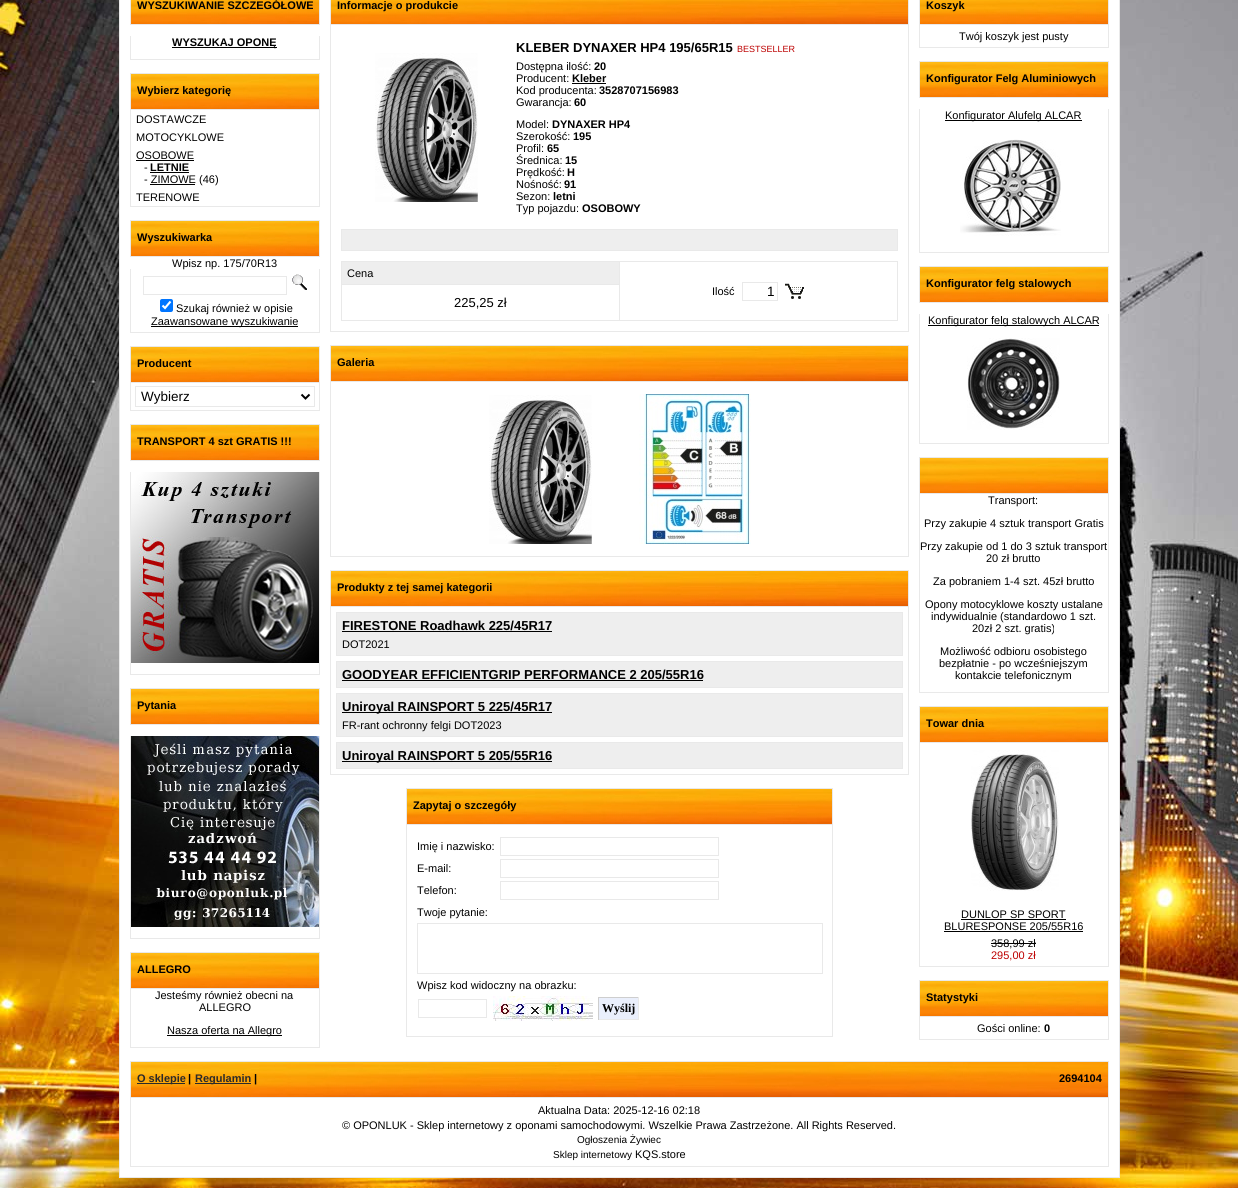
#include <cairo.h>
#include <math.h>
#include <stddef.h>

typedef struct { const char *family; double size; int italic, bold; unsigned color; } style_t;
static cairo_t *ctx;

static void ink(unsigned color) {
    cairo_set_source_rgb(ctx, (color >> 16) / 255.0, (color >> 8 & 255) / 255.0, (color & 255) / 255.0);
}

static void write(double x, double y, const char *s, const style_t *st) {
    cairo_select_font_face(ctx, st->family, st->italic ? CAIRO_FONT_SLANT_ITALIC : CAIRO_FONT_SLANT_NORMAL,
        st->bold ? CAIRO_FONT_WEIGHT_BOLD : CAIRO_FONT_WEIGHT_NORMAL);
    cairo_set_font_size(ctx, st->size);
    ink(st->color);
    cairo_move_to(ctx, x, y);
    cairo_show_text(ctx, s);
}

static void block(double x, double y, double w, double h, unsigned color) {
    ink(color);
    cairo_rectangle(ctx, x, y, w, h);
    cairo_fill(ctx);
}

static void round_path(double x, double y, double w, double h, double r) {
    cairo_new_sub_path(ctx);
    cairo_arc(ctx, x + w - r, y + h - r, r, 0, M_PI / 2);
    cairo_arc(ctx, x + r, y + h - r, r, M_PI / 2, M_PI);
    cairo_arc(ctx, x + r, y + r, r, M_PI, 1.5 * M_PI);
    cairo_arc(ctx, x + w - r, y + r, r, 1.5 * M_PI, 2 * M_PI);
    cairo_close_path(ctx);
}

static void paste(const char *path, double x, double y, double w, double h) {
    cairo_surface_t *image = cairo_image_surface_create_from_png(path);
    cairo_save(ctx);
    cairo_set_source_surface(ctx, image, x, y);
    cairo_rectangle(ctx, x, y, w, h);
    cairo_fill(ctx);
    cairo_restore(ctx);
    cairo_surface_destroy(image);
}

static const style_t s1 = {"Liberation Sans", 11, 0, 1, 0x000000};
static const style_t s2 = {"Liberation Sans", 11, 0, 0, 0x000000};
static const style_t s3 = {"Liberation Sans", 13.5, 0, 0, 0x000000};
static const style_t s4 = {"Liberation Sans", 13, 0, 1, 0x000000};
static const style_t s5 = {"Liberation Sans", 9, 0, 0, 0xbd0000};
static const style_t s6 = {"Liberation Sans", 13, 0, 0, 0x000000};
static const style_t s7 = {"Liberation Serif", 12, 0, 1, 0x000000};
static const style_t s8 = {"Liberation Sans", 11, 0, 0, 0xbd0000};
static const style_t s9 = {"Liberation Sans", 11, 0, 1, 0x2a2a2a};
static const style_t s10 = {"Liberation Sans", 10, 0, 0, 0x000000};

int main(void) {
    cairo_surface_t *surface = cairo_image_surface_create(CAIRO_FORMAT_RGB24, 1238, 1188);
    ctx = cairo_create(surface);
    cairo_font_options_t *options = cairo_font_options_create();
    cairo_font_options_set_hint_metrics(options, CAIRO_HINT_METRICS_OFF);
    cairo_font_options_set_hint_style(options, CAIRO_HINT_STYLE_NONE);
    cairo_set_font_options(ctx, options);
    cairo_set_miter_limit(ctx, 4);
    ink(0xffffff);
    cairo_paint(ctx);
    paste("pic1.png", 0, 0, 1238, 1188);
    ink(0xffffff);
    cairo_rectangle(ctx, 119.5, -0.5, 1000, 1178);
    cairo_fill_preserve(ctx);
    ink(0xe9e9e9);
    cairo_set_line_width(ctx, 1);
    cairo_stroke(ctx);
    paste("pic2.png", 131, 0, 188, 24);
    cairo_rectangle(ctx, 130.5, -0.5, 189, 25);
    cairo_stroke(ctx);
    write(137, 9, "WYSZUKIWANIE SZCZEGÓŁOWE", &s1);
    block(319, 36, 1, 24, 0xe9e9e9);
    block(130, 59, 190, 1, 0xe9e9e9);
    block(130, 36, 1, 24, 0xe9e9e9);
    block(172, 47, 105, 1, 0x000000);
    write(172, 46, "WYSZUKAJ OPONĘ", &s1);
    paste("pic3.png", 131, 74, 188, 35);
    cairo_rectangle(ctx, 130.5, 73.5, 189, 36);
    ink(0xe9e9e9);
    cairo_stroke(ctx);
    write(137, 94, "Wybierz kategorię", &s1);
    block(319, 110, 1, 97, 0xe9e9e9);
    block(130, 206, 190, 1, 0xe9e9e9);
    block(130, 110, 1, 97, 0xe9e9e9);
    write(136, 123, "DOSTAWCZE", &s2);
    write(136, 141, "MOTOCYKLOWE", &s2);
    write(136, 159, "OSOBOWE", &s2);
    block(136, 160, 58, 1, 0x000000);
    write(144, 171, "-", &s2);
    write(150, 171, "LETNIE", &s1);
    block(150, 172, 39, 1, 0x000000);
    write(144, 183, "- ZIMOWE (46)", &s2);
    block(150, 184, 45, 1, 0x000000);
    write(136, 201, "TERENOWE", &s2);
    paste("pic3.png", 131, 221, 188, 35);
    cairo_rectangle(ctx, 130.5, 220.5, 189, 36);
    ink(0xe9e9e9);
    cairo_stroke(ctx);
    write(137, 241, "Wyszukiwarka", &s1);
    write(172, 267, "Wpisz np. 175/70R13", &s2);
    block(319, 269, 1, 64, 0xe9e9e9);
    block(130, 332, 190, 1, 0xe9e9e9);
    block(130, 269, 1, 64, 0xe9e9e9);
    cairo_rectangle(ctx, 143.5, 276.5, 143, 18);
    cairo_stroke(ctx);
    paste("pic4.png", 292, 274, 15, 16);
    ink(0x0075ff);
    round_path(160, 299, 13, 13, 2);
    cairo_fill(ctx);
    cairo_new_path(ctx);
    cairo_move_to(ctx, 162.5, 305.5);
    cairo_line_to(ctx, 165, 308);
    cairo_line_to(ctx, 170.5, 301.5);
    ink(0xffffff);
    cairo_set_line_width(ctx, 2.1);
    cairo_stroke(ctx);
    write(176, 312, "Szukaj również w opisie", &s2);
    block(151, 326, 147, 1, 0x000000);
    write(151, 325, "Zaawansowane wyszukiwanie", &s2);
    paste("pic3.png", 131, 347, 188, 35);
    cairo_rectangle(ctx, 130.5, 346.5, 189, 36);
    ink(0xe9e9e9);
    cairo_set_line_width(ctx, 1);
    cairo_stroke(ctx);
    write(137, 367, "Producent", &s1);
    block(319, 383, 1, 28, 0xe9e9e9);
    block(130, 410, 190, 1, 0xe9e9e9);
    block(130, 383, 1, 28, 0xe9e9e9);
    cairo_rectangle(ctx, 135.5, 386.5, 179, 20);
    cairo_stroke(ctx);
    cairo_new_path(ctx);
    cairo_move_to(ctx, 301.5, 394.5);
    cairo_line_to(ctx, 305.5, 398.5);
    cairo_line_to(ctx, 309.5, 394.5);
    ink(0x000000);
    cairo_set_line_width(ctx, 2);
    cairo_stroke(ctx);
    write(141, 401, "Wybierz", &s3);
    paste("pic3.png", 131, 425, 188, 35);
    cairo_rectangle(ctx, 130.5, 424.5, 189, 36);
    ink(0xe9e9e9);
    cairo_set_line_width(ctx, 1);
    cairo_stroke(ctx);
    write(137, 445, "TRANSPORT 4 szt GRATIS !!!", &s1);
    block(319, 472, 1, 203, 0xe9e9e9);
    block(130, 674, 190, 1, 0xe9e9e9);
    block(130, 472, 1, 203, 0xe9e9e9);
    paste("pic5.png", 131, 472, 188, 191);
    paste("pic3.png", 131, 689, 188, 35);
    cairo_rectangle(ctx, 130.5, 688.5, 189, 36);
    cairo_stroke(ctx);
    write(137, 709, "Pytania", &s1);
    block(319, 736, 1, 203, 0xe9e9e9);
    block(130, 938, 190, 1, 0xe9e9e9);
    block(130, 736, 1, 203, 0xe9e9e9);
    paste("pic6.png", 131, 736, 188, 191);
    paste("pic3.png", 131, 953, 188, 35);
    cairo_rectangle(ctx, 130.5, 952.5, 189, 36);
    cairo_stroke(ctx);
    write(137, 973, "ALLEGRO", &s1);
    block(319, 989, 1, 59, 0xe9e9e9);
    block(130, 1047, 190, 1, 0xe9e9e9);
    block(130, 989, 1, 59, 0xe9e9e9);
    write(155, 999, "Jesteśmy również obecni na", &s2);
    write(199, 1011, "ALLEGRO", &s2);
    block(167, 1035, 115, 1, 0x000000);
    write(167, 1034, "Nasza oferta na Allegro", &s2);
    paste("pic7.png", 331, 0, 577, 24);
    cairo_rectangle(ctx, 330.5, -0.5, 578, 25);
    ink(0xe9e9e9);
    cairo_stroke(ctx);
    write(337, 9, "Informacje o produkcie", &s1);
    block(908, 25, 1, 307, 0xe9e9e9);
    block(330, 331, 579, 1, 0xe9e9e9);
    block(330, 25, 1, 307, 0xe9e9e9);
    paste("pic8.png", 375, 53, 103, 149);
    write(516, 52, "KLEBER DYNAXER HP4 195/65R15", &s4);
    write(737, 52, "BESTSELLER", &s5);
    write(516, 70, "Dostępna ilość:", &s2);
    write(594, 70, "20", &s1);
    write(516, 82, "Producent:", &s2);
    write(572, 82, "Kleber", &s1);
    block(572, 83, 34, 1, 0x000000);
    write(516, 94, "Kod producenta:", &s2);
    write(599, 94, "3528707156983", &s1);
    write(516, 106, "Gwarancja:", &s2);
    write(574, 106, "60", &s1);
    write(516, 128, "Model:", &s2);
    write(552, 128, "DYNAXER HP4", &s1);
    write(516, 140, "Szerokość:", &s2);
    write(573, 140, "195", &s1);
    write(516, 152, "Profil:", &s2);
    write(547, 152, "65", &s1);
    write(516, 164, "Średnica:", &s2);
    write(565, 164, "15", &s1);
    write(516, 176, "Prędkość:", &s2);
    write(567, 176, "H", &s1);
    write(516, 188, "Nośność:", &s2);
    write(564, 188, "91", &s1);
    write(516, 200, "Sezon:", &s2);
    write(553, 200, "letni", &s1);
    write(516, 212, "Typ pojazdu:", &s2);
    write(582, 212, "OSOBOWY", &s1);
    ink(0xeeeeee);
    cairo_rectangle(ctx, 341.5, 229.5, 556, 21);
    cairo_fill_preserve(ctx);
    ink(0xe9e9e9);
    cairo_stroke(ctx);
    block(342, 262, 277, 22, 0xeeeeee);
    block(619, 261, 279, 1, 0xe9e9e9);
    block(897, 261, 1, 60, 0xe9e9e9);
    block(341, 320, 279, 1, 0xe9e9e9);
    block(619, 320, 279, 1, 0xe9e9e9);
    block(341, 284, 279, 1, 0xe9e9e9);
    block(619, 261, 1, 60, 0xe9e9e9);
    block(341, 261, 279, 1, 0xe9e9e9);
    block(341, 284, 1, 37, 0xe9e9e9);
    block(341, 261, 1, 24, 0xe9e9e9);
    write(347, 277, "Cena", &s2);
    write(712, 295, "Ilość", &s2);
    cairo_rectangle(ctx, 742.5, 282.5, 35, 18);
    ink(0xe9e9e9);
    cairo_stroke(ctx);
    write(767, 296, "1", &s3);
    paste("pic9.png", 785, 283, 19, 16);
    write(454, 307, "225,25 zł", &s6);
    paste("pic10.png", 331, 346, 577, 35);
    cairo_rectangle(ctx, 330.5, 345.5, 578, 36);
    ink(0xe9e9e9);
    cairo_stroke(ctx);
    write(337, 366, "Galeria", &s1);
    block(908, 382, 1, 175, 0xe9e9e9);
    block(330, 556, 579, 1, 0xe9e9e9);
    block(330, 382, 1, 175, 0xe9e9e9);
    paste("pic8.png", 489, 395, 103, 149);
    paste("pic11.png", 639, 394, 112, 150);
    paste("pic10.png", 331, 571, 577, 35);
    cairo_rectangle(ctx, 330.5, 570.5, 578, 36);
    cairo_stroke(ctx);
    write(337, 591, "Produkty z tej samej kategorii", &s1);
    block(908, 607, 1, 168, 0xe9e9e9);
    block(330, 774, 579, 1, 0xe9e9e9);
    block(330, 607, 1, 168, 0xe9e9e9);
    block(337, 613, 565, 42, 0xeeeeee);
    block(336, 612, 567, 1, 0xe9e9e9);
    block(902, 612, 1, 44, 0xe9e9e9);
    block(336, 655, 567, 1, 0xe9e9e9);
    block(336, 612, 1, 44, 0xe9e9e9);
    write(342, 630, "FIRESTONE Roadhawk 225/45R17", &s4);
    block(342, 631, 210, 1, 0x000000);
    write(342, 648, "DOT2021", &s2);
    block(337, 662, 565, 25, 0xeeeeee);
    block(336, 661, 567, 1, 0xe9e9e9);
    block(902, 661, 1, 27, 0xe9e9e9);
    block(336, 687, 567, 1, 0xe9e9e9);
    block(336, 661, 1, 27, 0xe9e9e9);
    write(342, 679, "GOODYEAR EFFICIENTGRIP PERFORMANCE 2 205/55R16", &s4);
    block(342, 680, 361, 1, 0x000000);
    block(337, 694, 565, 42, 0xeeeeee);
    block(336, 693, 567, 1, 0xe9e9e9);
    block(902, 693, 1, 44, 0xe9e9e9);
    block(336, 736, 567, 1, 0xe9e9e9);
    block(336, 693, 1, 44, 0xe9e9e9);
    block(342, 712, 210, 1, 0x000000);
    write(342, 711, "Uniroyal RAINSPORT 5 225/45R17", &s4);
    write(342, 729, "FR-rant ochronny felgi DOT2023", &s2);
    block(337, 743, 565, 25, 0xeeeeee);
    block(336, 742, 567, 1, 0xe9e9e9);
    block(902, 742, 1, 27, 0xe9e9e9);
    block(336, 768, 567, 1, 0xe9e9e9);
    block(336, 742, 1, 27, 0xe9e9e9);
    block(342, 761, 210, 1, 0x000000);
    write(342, 760, "Uniroyal RAINSPORT 5 205/55R16", &s4);
    paste("pic12.png", 407, 789, 425, 35);
    cairo_rectangle(ctx, 406.5, 788.5, 426, 36);
    ink(0xe9e9e9);
    cairo_stroke(ctx);
    write(413, 809, "Zapytaj o szczegóły", &s1);
    block(832, 825, 1, 212, 0xe9e9e9);
    block(406, 1036, 427, 1, 0xe9e9e9);
    block(406, 825, 1, 212, 0xe9e9e9);
    write(417, 850, "Imię i nazwisko:", &s2);
    cairo_rectangle(ctx, 500.5, 837.5, 218, 18);
    ink(0xe9e9e9);
    cairo_stroke(ctx);
    write(417, 872, "E-mail:", &s2);
    cairo_rectangle(ctx, 500.5, 859.5, 218, 18);
    ink(0xe9e9e9);
    cairo_stroke(ctx);
    write(417, 894, "Telefon:", &s2);
    cairo_rectangle(ctx, 500.5, 881.5, 218, 18);
    ink(0xe9e9e9);
    cairo_stroke(ctx);
    write(417, 916, "Twoje pytanie:", &s2);
    cairo_rectangle(ctx, 417.5, 923.5, 405, 50);
    ink(0xe9e9e9);
    cairo_stroke(ctx);
    write(417, 989, "Wpisz kod widoczny na obrazku:", &s2);
    cairo_rectangle(ctx, 418.5, 999.5, 68, 18);
    ink(0xe9e9e9);
    cairo_stroke(ctx);
    paste("pic13.png", 493, 996, 100, 25);
    block(599, 998, 39, 21, 0xeaeffc);
    block(598, 997, 41, 1, 0xcecece);
    block(638, 997, 1, 23, 0xe9e9e9);
    block(598, 1019, 41, 1, 0xe9e9e9);
    block(598, 997, 1, 23, 0xcecece);
    write(602, 1012, "Wyślij", &s7);
    paste("pic2.png", 920, 0, 188, 24);
    cairo_rectangle(ctx, 919.5, -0.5, 189, 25);
    ink(0xe9e9e9);
    cairo_stroke(ctx);
    write(926, 9, "Koszyk", &s1);
    block(1108, 25, 1, 23, 0xe9e9e9);
    block(919, 47, 190, 1, 0xe9e9e9);
    block(919, 25, 1, 23, 0xe9e9e9);
    write(959, 40, "Twój koszyk jest pusty", &s2);
    paste("pic3.png", 920, 62, 188, 35);
    cairo_rectangle(ctx, 919.5, 61.5, 189, 36);
    ink(0xe9e9e9);
    cairo_stroke(ctx);
    write(926, 82, "Konfigurator Felg Aluminiowych", &s1);
    block(1108, 109, 1, 144, 0xe9e9e9);
    block(919, 252, 190, 1, 0xe9e9e9);
    block(919, 109, 1, 144, 0xe9e9e9);
    block(945, 120, 137, 1, 0x000000);
    write(945, 119, "Konfigurator Alufelg ALCAR", &s2);
    paste("pic14.png", 960, 139, 101, 97);
    paste("pic3.png", 920, 267, 188, 35);
    cairo_rectangle(ctx, 919.5, 266.5, 189, 36);
    ink(0xe9e9e9);
    cairo_stroke(ctx);
    write(926, 287, "Konfigurator felg stalowych", &s1);
    block(1108, 314, 1, 130, 0xe9e9e9);
    block(919, 443, 190, 1, 0xe9e9e9);
    block(919, 314, 1, 130, 0xe9e9e9);
    block(928, 325, 171, 1, 0x000000);
    write(928, 324, "Konfigurator felg stalowych ALCAR", &s2);
    paste("pic15.png", 967, 338, 93, 92);
    paste("pic3.png", 920, 458, 188, 35);
    cairo_rectangle(ctx, 919.5, 457.5, 189, 36);
    ink(0xe9e9e9);
    cairo_stroke(ctx);
    block(1108, 494, 1, 199, 0xe9e9e9);
    block(919, 692, 190, 1, 0xe9e9e9);
    block(919, 494, 1, 199, 0xe9e9e9);
    write(988, 504, "Transport:", &s2);
    write(924, 527, "Przy zakupie 4 sztuk transport Gratis", &s2);
    write(920, 550, "Przy zakupie od 1 do 3 sztuk transport", &s2);
    write(986, 562, "20 zł brutto", &s2);
    write(933, 585, "Za pobraniem 1-4 szt. 45zł brutto", &s2);
    write(925, 608, "Opony motocyklowe koszty ustalane", &s2);
    write(931, 620, "indywidualnie (standardowo 1 szt.", &s2);
    write(972, 632, "20zł 2 szt. gratis)", &s2);
    write(940, 655, "Możliwość odbioru osobistego", &s2);
    write(939, 667, "bezpłatnie - po wcześniejszym", &s2);
    write(955, 679, "kontakcie telefonicznym", &s2);
    paste("pic3.png", 920, 707, 188, 35);
    cairo_rectangle(ctx, 919.5, 706.5, 189, 36);
    ink(0xe9e9e9);
    cairo_stroke(ctx);
    write(926, 727, "Towar dnia", &s1);
    block(1108, 743, 1, 224, 0xe9e9e9);
    block(919, 966, 190, 1, 0xe9e9e9);
    block(919, 743, 1, 224, 0xe9e9e9);
    paste("pic16.png", 971, 750, 88, 141);
    write(961, 918, "DUNLOP SP SPORT", &s2);
    block(961, 919, 105, 1, 0x000000);
    write(944, 930, "BLURESPONSE 205/55R16", &s2);
    block(944, 931, 139, 1, 0x000000);
    write(991, 947, "358,99 zł", &s2);
    block(991, 943, 45, 1, 0x000000);
    write(991, 959, "295,00 zł", &s8);
    paste("pic3.png", 920, 981, 188, 35);
    cairo_rectangle(ctx, 919.5, 980.5, 189, 36);
    ink(0xe9e9e9);
    cairo_stroke(ctx);
    write(926, 1001, "Statystyki", &s1);
    block(1108, 1017, 1, 23, 0xe9e9e9);
    block(919, 1039, 190, 1, 0xe9e9e9);
    block(919, 1017, 1, 23, 0xe9e9e9);
    write(977, 1032, "Gości online:", &s2);
    write(1044, 1032, "0", &s1);
    paste("pic17.png", 131, 1062, 977, 35);
    cairo_rectangle(ctx, 130.5, 1061.5, 978, 36);
    ink(0xe9e9e9);
    cairo_stroke(ctx);
    block(137, 1083, 48, 1, 0x2a2a2a);
    write(137, 1082, "O sklepie", &s9);
    write(188, 1082, "|", &s1);
    block(195, 1083, 56, 1, 0x2a2a2a);
    write(195, 1082, "Regulamin", &s9);
    write(254, 1082, "|", &s1);
    write(1059, 1082, "2694104", &s1);
    block(1108, 1098, 1, 69, 0xe9e9e9);
    block(130, 1166, 979, 1, 0xe9e9e9);
    block(130, 1098, 1, 69, 0xe9e9e9);
    write(538, 1114, "Aktualna Data: 2025-12-16 02:18", &s2);
    write(342, 1129, "© OPONLUK - Sklep internetowy z oponami samochodowymi. Wszelkie Prawa Zastrzeżone. All Rights Reserved.", &s2);
    write(577, 1143, "Ogłoszenia Żywiec", &s10);
    write(553, 1158, "Sklep internetowy", &s10);
    write(635, 1158, "KQS.store", &s2);
    cairo_surface_write_to_png(surface, "screenshot.png");
    cairo_font_options_destroy(options);
    cairo_destroy(ctx);
    cairo_surface_destroy(surface);
    return 0;
}
